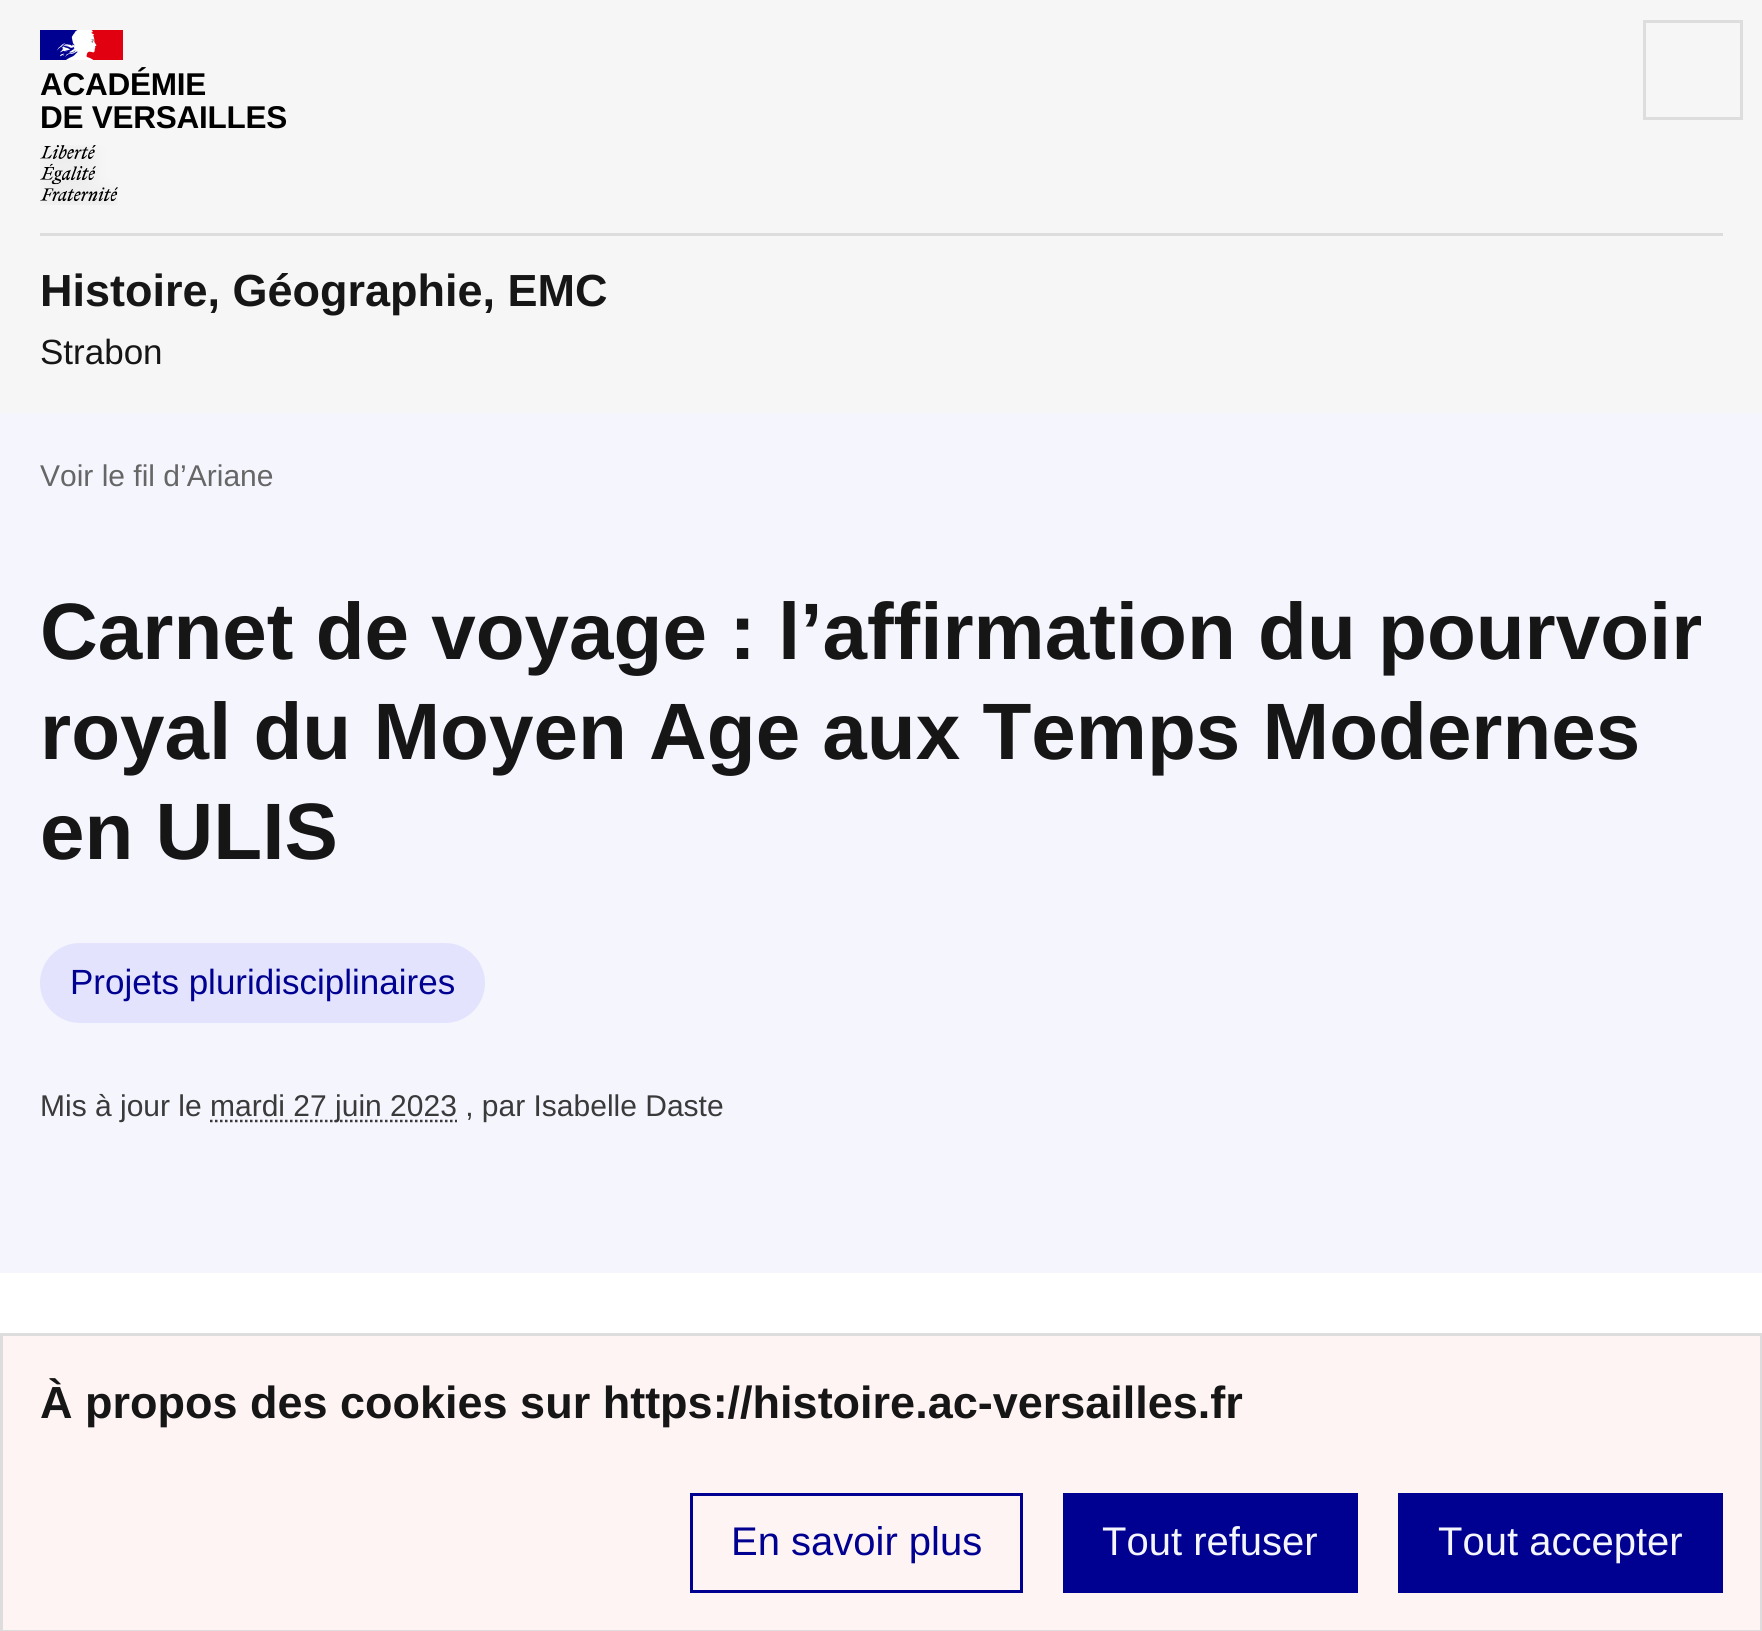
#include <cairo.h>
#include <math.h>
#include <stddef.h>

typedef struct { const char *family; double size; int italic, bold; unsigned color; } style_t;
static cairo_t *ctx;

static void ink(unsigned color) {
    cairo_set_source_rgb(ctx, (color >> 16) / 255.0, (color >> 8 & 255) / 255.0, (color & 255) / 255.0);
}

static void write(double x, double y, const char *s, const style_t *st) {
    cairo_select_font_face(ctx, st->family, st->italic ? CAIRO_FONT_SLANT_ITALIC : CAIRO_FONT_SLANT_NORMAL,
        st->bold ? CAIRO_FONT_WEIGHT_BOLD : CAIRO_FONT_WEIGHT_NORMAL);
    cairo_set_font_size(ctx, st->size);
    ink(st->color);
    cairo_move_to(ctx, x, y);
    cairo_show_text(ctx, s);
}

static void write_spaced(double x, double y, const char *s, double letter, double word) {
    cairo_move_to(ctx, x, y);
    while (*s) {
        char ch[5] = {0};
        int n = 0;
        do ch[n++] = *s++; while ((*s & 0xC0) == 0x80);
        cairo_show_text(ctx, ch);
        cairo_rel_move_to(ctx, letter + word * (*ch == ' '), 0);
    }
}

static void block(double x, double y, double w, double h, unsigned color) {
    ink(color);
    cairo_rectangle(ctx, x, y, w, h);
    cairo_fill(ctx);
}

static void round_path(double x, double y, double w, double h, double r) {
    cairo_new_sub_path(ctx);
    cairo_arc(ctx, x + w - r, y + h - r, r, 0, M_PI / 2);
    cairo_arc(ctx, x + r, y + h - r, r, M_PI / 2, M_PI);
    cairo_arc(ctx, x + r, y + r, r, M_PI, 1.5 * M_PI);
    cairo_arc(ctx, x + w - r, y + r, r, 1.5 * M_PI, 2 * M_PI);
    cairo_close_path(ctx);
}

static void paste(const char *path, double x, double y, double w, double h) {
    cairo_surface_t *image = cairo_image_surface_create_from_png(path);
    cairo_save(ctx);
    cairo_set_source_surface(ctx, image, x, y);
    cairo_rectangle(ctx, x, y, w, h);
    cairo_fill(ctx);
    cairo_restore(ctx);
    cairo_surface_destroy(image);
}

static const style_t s1 = {"Liberation Sans", 45, 0, 1, 0x161616};
static const style_t s2 = {"Liberation Sans", 35, 0, 0, 0x161616};
static const style_t s3 = {"Liberation Sans", 30, 0, 0, 0x666666};
static const style_t s4 = {"Liberation Sans", 80, 0, 1, 0x161616};
static const style_t s5 = {"Liberation Sans", 35, 0, 0, 0x000091};
static const style_t s6 = {"Liberation Sans", 30, 0, 0, 0x3a3a3a};
static const style_t s7 = {"Liberation Sans", 40, 0, 0, 0x000091};
static const style_t s8 = {"Liberation Sans", 40, 0, 0, 0xf5f5fe};

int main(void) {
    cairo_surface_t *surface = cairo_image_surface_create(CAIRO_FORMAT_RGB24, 1762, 1631);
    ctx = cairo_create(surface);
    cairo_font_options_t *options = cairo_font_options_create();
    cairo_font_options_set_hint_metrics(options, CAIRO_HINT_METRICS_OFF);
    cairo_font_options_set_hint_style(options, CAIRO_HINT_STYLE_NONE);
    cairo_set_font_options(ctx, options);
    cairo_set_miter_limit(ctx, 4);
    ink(0xffffff);
    cairo_paint(ctx);
    block(0, 0, 1762, 413, 0xf6f6f6);
    block(40, 30, 38, 30, 0x000091);
    block(86, 30, 37, 30, 0xe1000f);
    paste("pic1.png", 56, 30, 41, 30);
    cairo_select_font_face(ctx, "Liberation Sans", CAIRO_FONT_SLANT_NORMAL, CAIRO_FONT_WEIGHT_BOLD);
    cairo_set_font_size(ctx, 31.5);
    ink(0x000000);
    write_spaced(40, 95, "ACADÉMIE", -0.25, 0);
    write_spaced(40, 128, "DE VERSAILLES", -0.25, 0);
    paste("pic2.png", 40, 145, 78, 60);
    cairo_rectangle(ctx, 1644.5, 21.5, 97, 97);
    ink(0xdddddd);
    cairo_set_line_width(ctx, 3);
    cairo_stroke(ctx);
    block(40, 233, 1683, 3, 0xdddddd);
    write(40, 306, "Histoire, Géographie, EMC", &s1);
    write(40, 364, "Strabon", &s2);
    block(0, 413, 1762, 860, 0xf5f5fe);
    write(40, 486, "Voir le fil d’Ariane", &s3);
    write(40, 659, "Carnet de voyage : l’affirmation du pourvoir", &s4);
    write(40, 759, "royal du Moyen Age aux Temps Modernes", &s4);
    write(40, 859, "en ULIS", &s4);
    ink(0xe3e3fd);
    round_path(40, 943, 445, 80, 40);
    cairo_fill(ctx);
    write(70, 994, "Projets pluridisciplinaires", &s5);
    write(40, 1116, "Mis à jour le", &s6);
    cairo_new_path(ctx);
    cairo_move_to(ctx, 210, 1121);
    cairo_line_to(ctx, 457, 1121);
    cairo_set_line_width(ctx, 2.5);
    cairo_set_dash(ctx, (double[]){2.5, 2.5}, 2, 0);
    cairo_stroke(ctx);
    write(210, 1116, "mardi 27 juin 2023 , par Isabelle Daste", &s6);
    ink(0xfef4f4);
    cairo_rectangle(ctx, 1.5, 1334.5, 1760, 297);
    cairo_fill_preserve(ctx);
    ink(0xdddddd);
    cairo_set_line_width(ctx, 3);
    cairo_set_dash(ctx, NULL, 0, 0);
    cairo_stroke(ctx);
    write(40, 1418, "À propos des cookies sur https://histoire.ac-versailles.fr", &s1);
    cairo_rectangle(ctx, 691.5, 1494.5, 330, 97);
    ink(0x000091);
    cairo_stroke(ctx);
    write(731, 1555, "En savoir plus", &s7);
    block(1063, 1493, 295, 100, 0x000091);
    write(1102, 1555, "Tout refuser", &s8);
    block(1398, 1493, 325, 100, 0x000091);
    write(1438, 1555, "Tout accepter", &s8);
    cairo_surface_write_to_png(surface, "screenshot.png");
    cairo_font_options_destroy(options);
    cairo_destroy(ctx);
    cairo_surface_destroy(surface);
    return 0;
}
